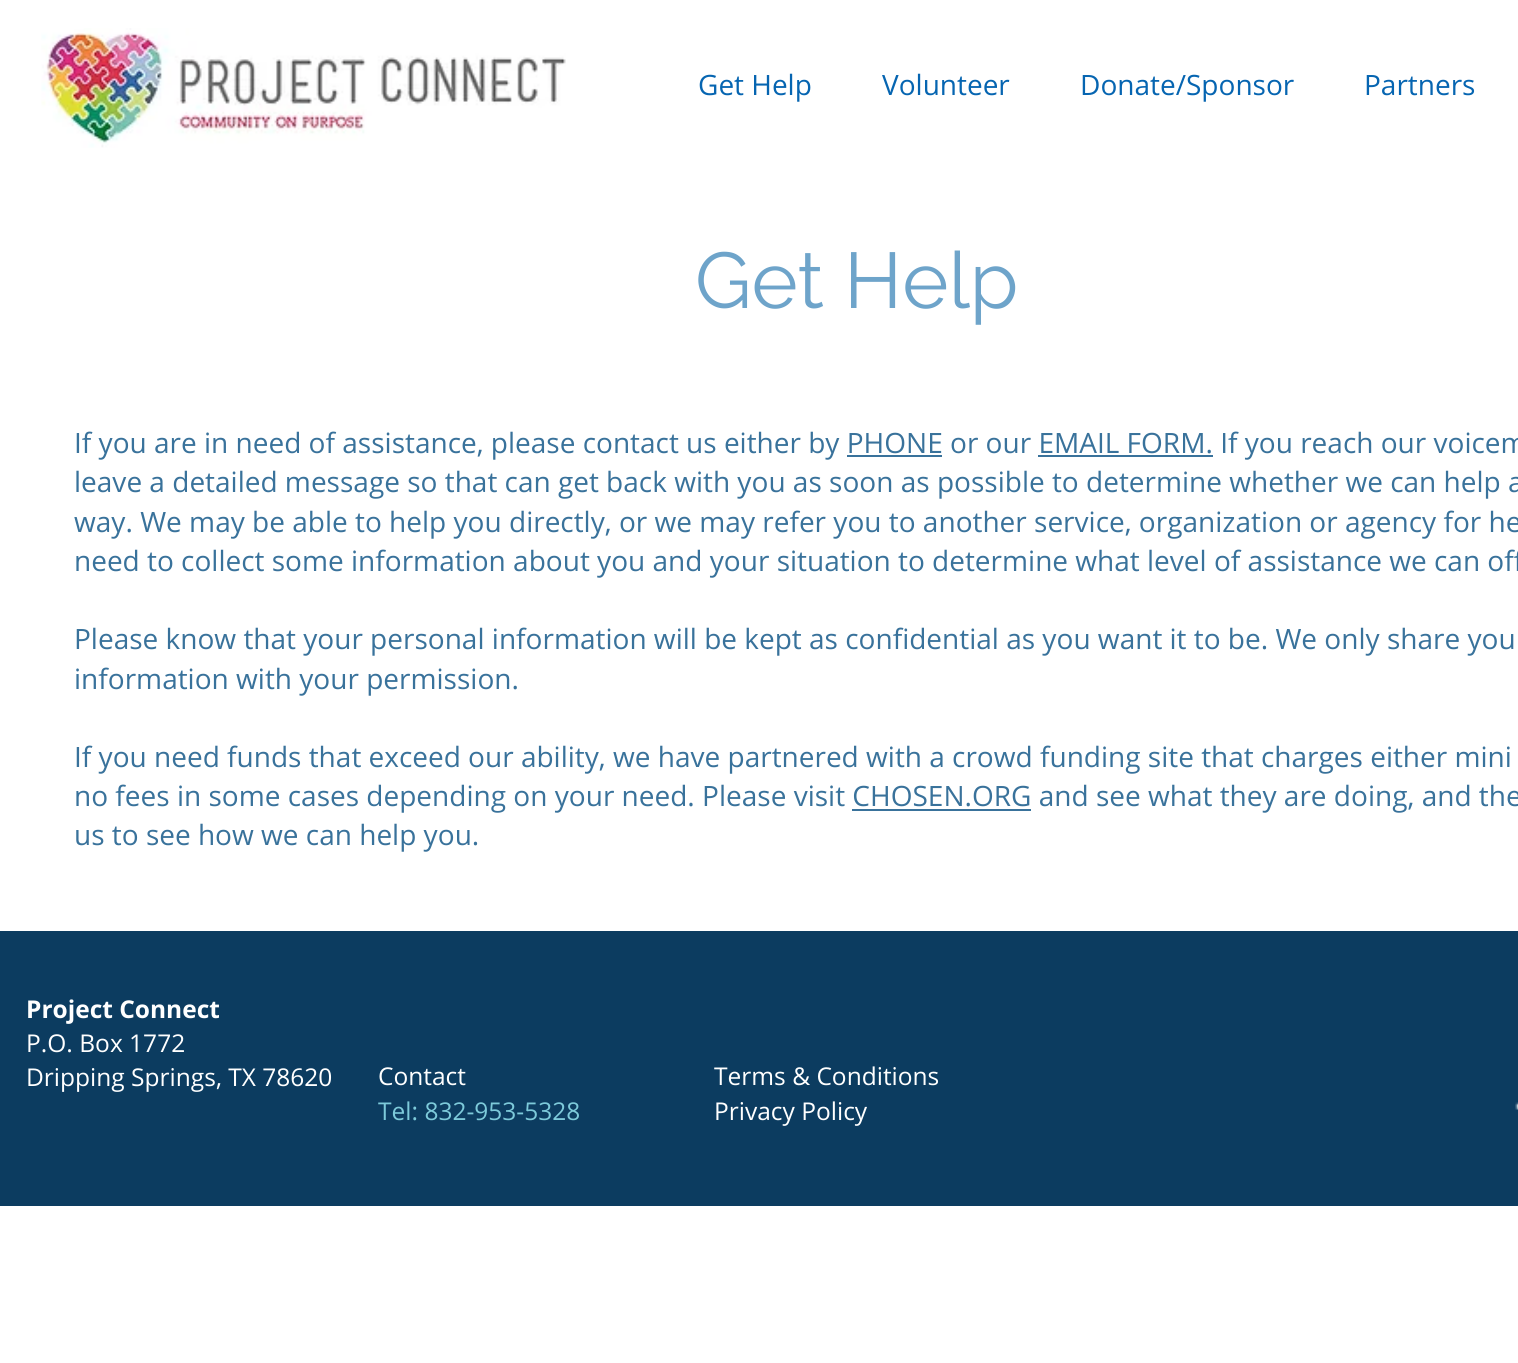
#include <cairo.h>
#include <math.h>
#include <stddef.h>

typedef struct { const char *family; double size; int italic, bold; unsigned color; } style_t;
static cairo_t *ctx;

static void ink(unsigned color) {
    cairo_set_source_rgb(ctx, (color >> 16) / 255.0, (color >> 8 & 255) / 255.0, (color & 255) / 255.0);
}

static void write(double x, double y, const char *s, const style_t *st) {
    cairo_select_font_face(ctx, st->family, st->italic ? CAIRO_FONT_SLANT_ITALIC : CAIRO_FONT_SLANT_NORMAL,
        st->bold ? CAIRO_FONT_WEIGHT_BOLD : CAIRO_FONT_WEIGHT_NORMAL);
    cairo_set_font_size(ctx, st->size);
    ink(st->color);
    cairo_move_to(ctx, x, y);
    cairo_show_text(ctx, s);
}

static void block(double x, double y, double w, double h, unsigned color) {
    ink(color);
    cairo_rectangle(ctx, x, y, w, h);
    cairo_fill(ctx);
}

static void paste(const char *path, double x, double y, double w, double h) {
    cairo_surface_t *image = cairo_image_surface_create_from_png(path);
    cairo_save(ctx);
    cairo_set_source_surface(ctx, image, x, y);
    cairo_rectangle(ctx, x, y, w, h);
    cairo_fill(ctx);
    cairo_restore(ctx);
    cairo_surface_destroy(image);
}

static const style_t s1 = {"Open Sans", 28, 0, 0, 0x0665b1};
static const style_t s2 = {"Raleway", 78.75, 0, 0, 0x6ea4ca};
static const style_t s3 = {"Open Sans", 28, 0, 0, 0x39729b};
static const style_t s4 = {"Open Sans", 24.5, 0, 1, 0xffffff};
static const style_t s5 = {"Open Sans", 24.5, 0, 0, 0xffffff};
static const style_t s6 = {"Open Sans", 24.5, 0, 0, 0x7dcada};

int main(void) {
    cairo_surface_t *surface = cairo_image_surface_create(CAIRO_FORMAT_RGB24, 1518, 1363);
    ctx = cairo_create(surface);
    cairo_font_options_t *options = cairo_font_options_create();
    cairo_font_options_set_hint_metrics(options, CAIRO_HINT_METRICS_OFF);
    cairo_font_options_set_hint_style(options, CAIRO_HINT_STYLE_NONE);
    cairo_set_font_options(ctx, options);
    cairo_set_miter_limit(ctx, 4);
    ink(0xffffff);
    cairo_paint(ctx);
    paste("pic1.png", 41, 28, 525, 120);
    write(698, 95, "Get Help", &s1);
    write(882, 95, "Volunteer", &s1);
    write(1080, 95, "Donate/Sponsor", &s1);
    write(1364, 95, "Partners", &s1);
    write(695, 308, "Get Help", &s2);
    write(74, 453, "If you are in need of assistance, please contact us either by PHONE or our EMAIL FORM. If you reach our voicem", &s3);
    block(847, 455, 95, 2, 0x39729b);
    block(1038, 455, 175, 2, 0x39729b);
    write(74, 492, "leave a detailed message so that can get back with you as soon as possible to determine whether we can help a", &s3);
    write(74, 532, "way. We may be able to help you directly, or we may refer you to another service, organization or agency for he", &s3);
    write(74, 571, "need to collect some information about you and your situation to determine what level of assistance we can off", &s3);
    write(74, 649, "Please know that your personal information will be kept as confidential as you want it to be. We only share you", &s3);
    write(74, 689, "information with your permission.", &s3);
    write(74, 767, "If you need funds that exceed our ability, we have partnered with a crowd funding site that charges either mini", &s3);
    write(74, 806, "no fees in some cases depending on your need. Please visit CHOSEN.ORG and see what they are doing, and the", &s3);
    block(852, 809, 179, 2, 0x39729b);
    write(74, 845, "us to see how we can help you.", &s3);
    block(0, 931, 1518, 275, 0x0c3c60);
    write(26, 1018, "Project Connect", &s4);
    write(26, 1052, "P.O. Box 1772", &s5);
    write(26, 1086, "Dripping Springs, TX 78620", &s5);
    write(378, 1085, "Contact", &s5);
    write(378, 1120, "Tel: 832-953-5328", &s6);
    write(714, 1085, "Terms & Conditions", &s5);
    write(714, 1120, "Privacy Policy", &s5);
    paste("pic2.png", 1515, 1102, 3, 8);
    cairo_surface_write_to_png(surface, "screenshot.png");
    cairo_font_options_destroy(options);
    cairo_destroy(ctx);
    cairo_surface_destroy(surface);
    return 0;
}
